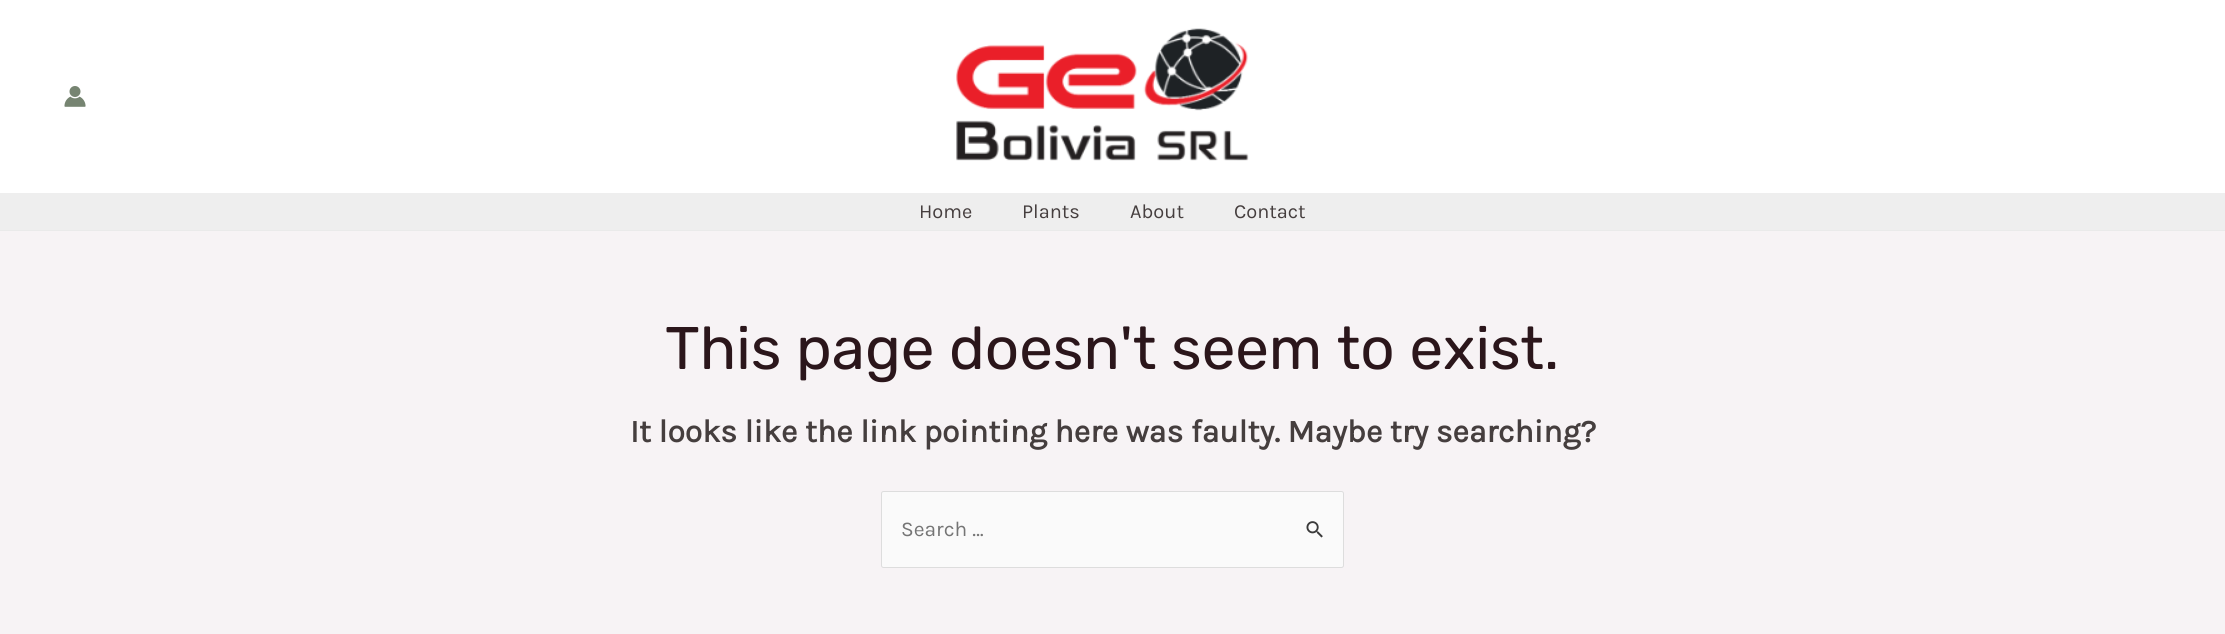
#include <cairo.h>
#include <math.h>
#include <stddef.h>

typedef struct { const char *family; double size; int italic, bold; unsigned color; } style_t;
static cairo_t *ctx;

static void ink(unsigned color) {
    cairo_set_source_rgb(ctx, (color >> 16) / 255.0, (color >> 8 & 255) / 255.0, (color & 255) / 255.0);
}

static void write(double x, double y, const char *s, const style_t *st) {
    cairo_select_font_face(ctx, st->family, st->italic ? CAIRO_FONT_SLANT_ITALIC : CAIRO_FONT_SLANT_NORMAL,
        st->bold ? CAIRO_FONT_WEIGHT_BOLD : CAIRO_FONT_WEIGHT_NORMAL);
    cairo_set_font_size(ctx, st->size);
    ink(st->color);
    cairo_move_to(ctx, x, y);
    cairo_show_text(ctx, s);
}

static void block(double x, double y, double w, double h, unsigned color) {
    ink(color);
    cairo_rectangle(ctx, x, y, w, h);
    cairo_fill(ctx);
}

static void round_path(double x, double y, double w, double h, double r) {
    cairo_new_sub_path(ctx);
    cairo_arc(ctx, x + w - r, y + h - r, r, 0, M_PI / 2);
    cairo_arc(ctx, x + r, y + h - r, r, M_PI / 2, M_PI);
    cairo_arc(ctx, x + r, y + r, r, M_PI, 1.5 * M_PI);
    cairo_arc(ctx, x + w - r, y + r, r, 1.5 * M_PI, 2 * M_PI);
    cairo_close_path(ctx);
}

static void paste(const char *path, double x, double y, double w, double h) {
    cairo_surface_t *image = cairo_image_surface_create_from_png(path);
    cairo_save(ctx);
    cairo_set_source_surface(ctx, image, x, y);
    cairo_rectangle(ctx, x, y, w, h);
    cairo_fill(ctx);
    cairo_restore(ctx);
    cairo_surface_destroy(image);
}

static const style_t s1 = {"Karla", 20, 0, 0, 0x453e3e};
static const style_t s2 = {"Rubik", 60, 0, 0, 0x2b161b};
static const style_t s3 = {"Karla", 31.9, 0, 1, 0x453e3e};
static const style_t s4 = {"Karla", 21, 0, 0, 0x757575};

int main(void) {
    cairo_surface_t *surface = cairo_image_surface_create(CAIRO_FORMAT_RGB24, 2225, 634);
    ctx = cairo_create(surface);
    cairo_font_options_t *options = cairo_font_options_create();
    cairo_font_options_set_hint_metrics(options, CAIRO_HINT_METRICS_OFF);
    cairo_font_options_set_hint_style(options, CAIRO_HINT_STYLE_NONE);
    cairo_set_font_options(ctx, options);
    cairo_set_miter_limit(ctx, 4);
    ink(0xf7f3f5);
    cairo_paint(ctx);
    block(0, 0, 2225, 193, 0xffffff);
    paste("pic1.png", 64, 86, 22, 21);
    paste("pic2.png", 956, 28, 293, 133);
    block(0, 193, 2225, 37, 0xeeeeee);
    block(0, 230, 2225, 1, 0xeaeaea);
    write(919, 218, "Home", &s1);
    write(1022, 218, "Plants", &s1);
    write(1130, 218, "About", &s1);
    write(1234, 218, "Contact", &s1);
    write(665, 369, "This page doesn't seem to exist.", &s2);
    write(630, 442, "It looks like the link pointing here was faulty. Maybe try searching?", &s3);
    ink(0xfafafa);
    round_path(881.5, 491.5, 462, 76, 2);
    cairo_fill_preserve(ctx);
    ink(0xdddddd);
    cairo_set_line_width(ctx, 1);
    cairo_stroke(ctx);
    write(901, 536, "Search …", &s4);
    paste("pic3.png", 1306, 521, 17, 17);
    cairo_surface_write_to_png(surface, "screenshot.png");
    cairo_font_options_destroy(options);
    cairo_destroy(ctx);
    cairo_surface_destroy(surface);
    return 0;
}
